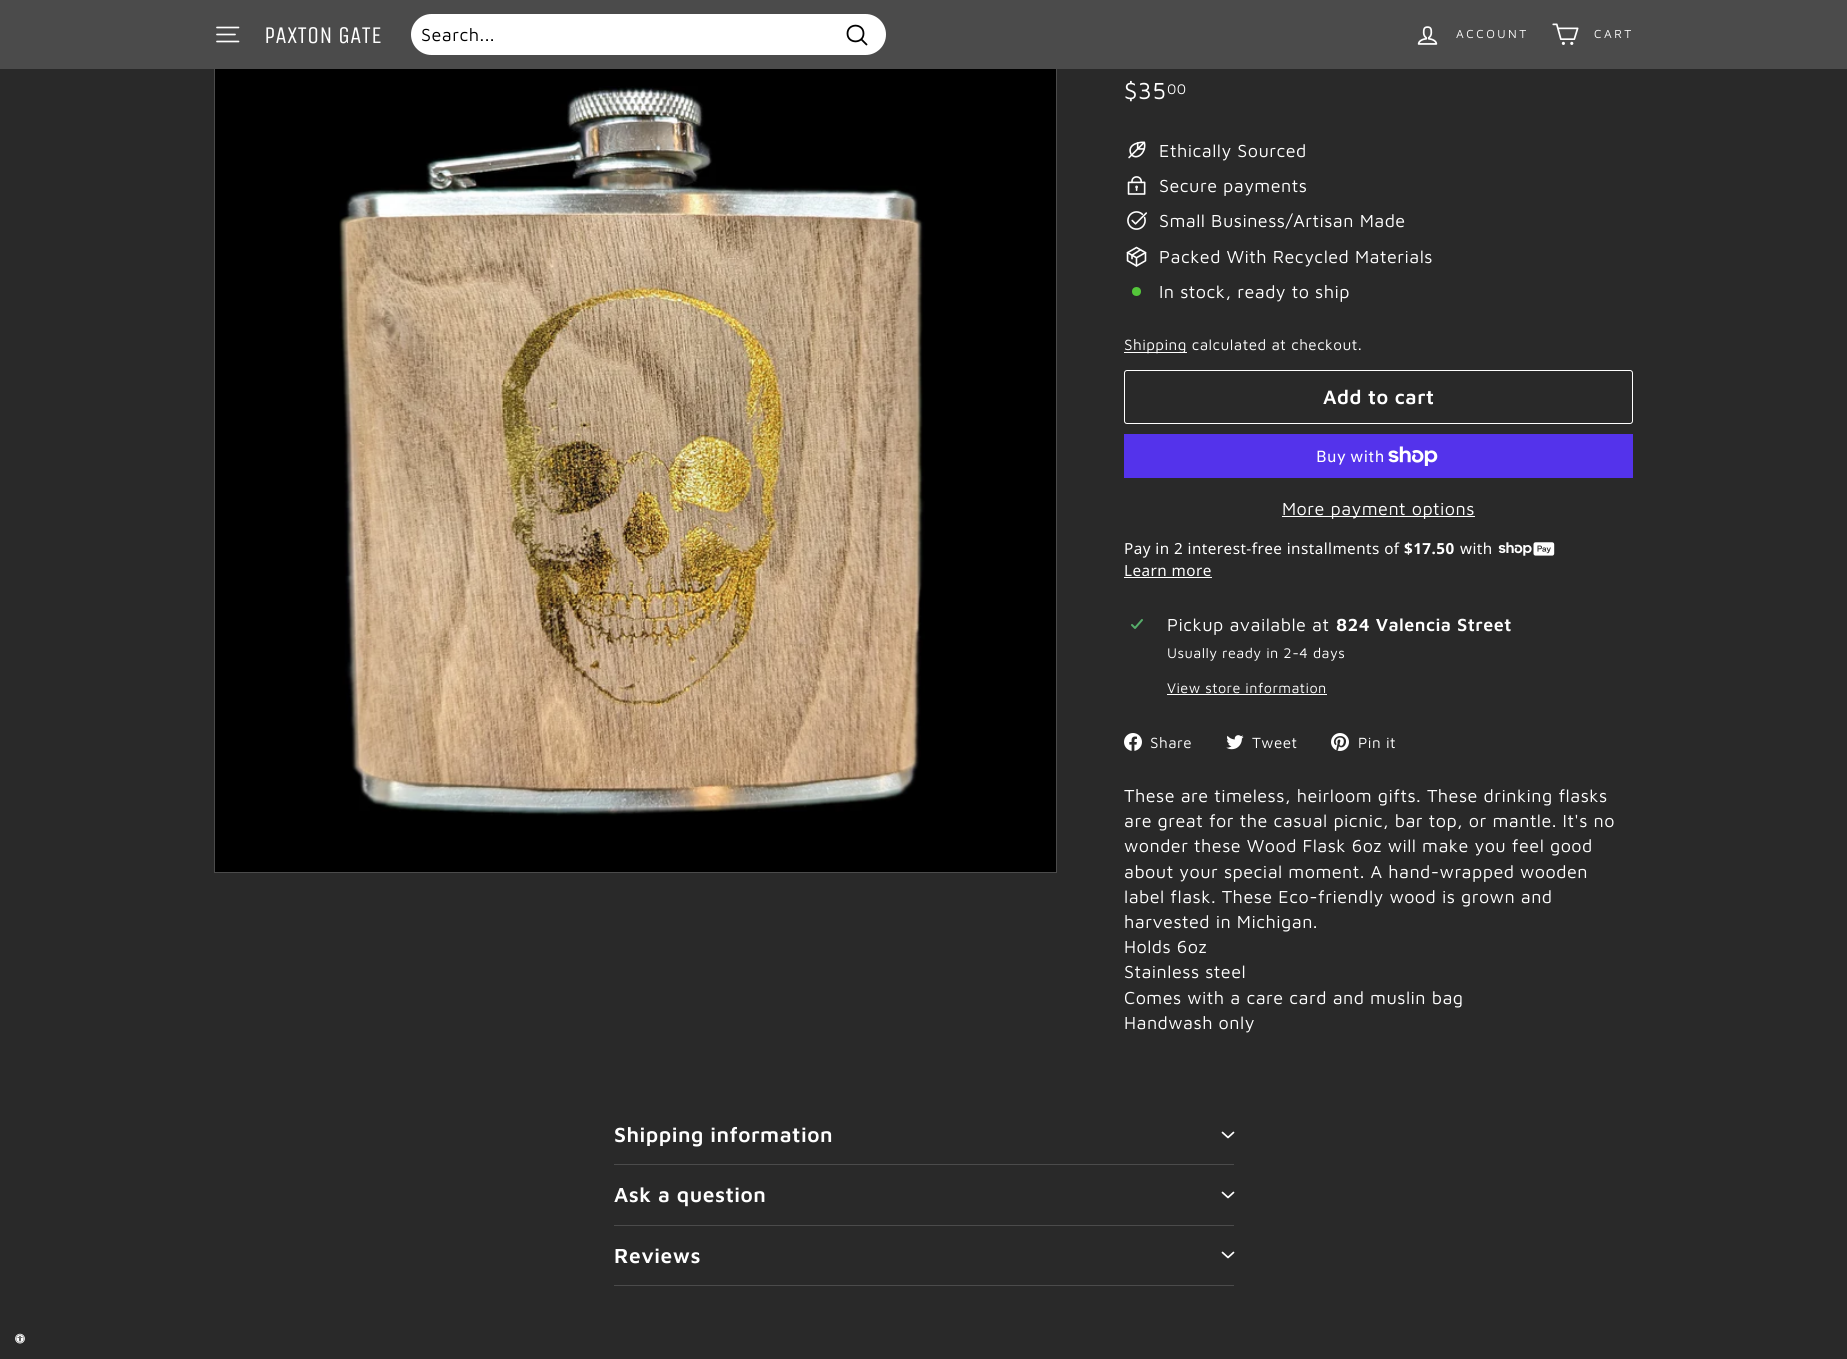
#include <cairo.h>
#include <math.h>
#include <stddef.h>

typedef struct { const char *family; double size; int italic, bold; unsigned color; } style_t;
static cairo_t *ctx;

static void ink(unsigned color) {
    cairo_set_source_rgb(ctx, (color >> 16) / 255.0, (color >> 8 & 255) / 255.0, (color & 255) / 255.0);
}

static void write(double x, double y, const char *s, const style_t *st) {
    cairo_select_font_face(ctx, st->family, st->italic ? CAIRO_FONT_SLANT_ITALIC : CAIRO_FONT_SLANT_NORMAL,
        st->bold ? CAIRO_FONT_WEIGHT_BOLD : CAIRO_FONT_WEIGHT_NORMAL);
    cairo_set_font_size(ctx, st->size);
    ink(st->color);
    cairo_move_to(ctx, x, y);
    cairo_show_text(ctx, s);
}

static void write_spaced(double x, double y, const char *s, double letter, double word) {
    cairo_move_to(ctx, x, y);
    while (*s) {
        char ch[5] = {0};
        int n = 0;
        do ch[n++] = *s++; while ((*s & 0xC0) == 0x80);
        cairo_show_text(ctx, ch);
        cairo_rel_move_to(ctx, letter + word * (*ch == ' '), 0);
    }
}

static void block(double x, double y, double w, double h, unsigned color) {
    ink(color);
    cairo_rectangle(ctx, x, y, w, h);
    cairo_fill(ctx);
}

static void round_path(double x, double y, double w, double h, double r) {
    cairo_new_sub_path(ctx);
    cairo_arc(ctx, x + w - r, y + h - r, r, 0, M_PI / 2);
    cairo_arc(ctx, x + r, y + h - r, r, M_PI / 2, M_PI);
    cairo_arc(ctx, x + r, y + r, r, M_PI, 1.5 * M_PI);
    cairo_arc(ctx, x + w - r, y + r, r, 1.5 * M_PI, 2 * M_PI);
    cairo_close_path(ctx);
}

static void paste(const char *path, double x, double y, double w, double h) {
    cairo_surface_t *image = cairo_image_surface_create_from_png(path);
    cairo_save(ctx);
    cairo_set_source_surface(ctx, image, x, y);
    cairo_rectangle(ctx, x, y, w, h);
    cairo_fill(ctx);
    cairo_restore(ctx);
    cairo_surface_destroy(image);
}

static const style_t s1 = {"Unica One", 24, 0, 0, 0xffffff};

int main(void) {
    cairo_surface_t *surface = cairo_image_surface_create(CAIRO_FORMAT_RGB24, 1847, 1359);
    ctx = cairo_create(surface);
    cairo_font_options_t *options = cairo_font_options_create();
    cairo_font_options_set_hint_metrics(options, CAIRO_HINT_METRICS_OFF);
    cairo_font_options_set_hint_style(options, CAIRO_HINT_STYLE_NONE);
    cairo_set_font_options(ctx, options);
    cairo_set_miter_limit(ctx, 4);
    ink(0x292929);
    cairo_paint(ctx);
    cairo_rectangle(ctx, 214.5, 30.5, 842, 842);
    ink(0x4b4b4b);
    cairo_set_line_width(ctx, 1);
    cairo_stroke(ctx);
    block(0, 0, 1847, 69, 0x4b4b4b);
    cairo_new_path(ctx);
    cairo_move_to(ctx, 217, 27.5);
    cairo_line_to(ctx, 238.5, 27.5);
    cairo_move_to(ctx, 217, 34.5);
    cairo_line_to(ctx, 235, 34.5);
    cairo_move_to(ctx, 217, 41.5);
    cairo_line_to(ctx, 238.5, 41.5);
    ink(0xffffff);
    cairo_set_line_width(ctx, 1.7);
    cairo_set_line_cap(ctx, CAIRO_LINE_CAP_ROUND);
    cairo_set_line_join(ctx, CAIRO_LINE_JOIN_ROUND);
    cairo_stroke(ctx);
    write(264, 43, "PAXTON GATE", &s1);
    round_path(411, 14, 475, 41, 20.5);
    cairo_fill(ctx);
    cairo_select_font_face(ctx, "Maven Pro", CAIRO_FONT_SLANT_NORMAL, CAIRO_FONT_WEIGHT_NORMAL);
    cairo_set_font_size(ctx, 18);
    ink(0x000000);
    write_spaced(421, 41, "Search...", 0.45, 0);
    cairo_new_path(ctx);
    cairo_move_to(ctx, 863.5, 33.5);
    cairo_curve_to(ctx, 863.5, 44, 847.5, 44, 847.5, 33.5);
    cairo_curve_to(ctx, 847.5, 23, 863.5, 23, 863.5, 33.5);
    cairo_close_path(ctx);
    cairo_move_to(ctx, 866.5, 44.5);
    cairo_line_to(ctx, 861.5, 39.5);
    cairo_set_line_width(ctx, 1.8);
    cairo_stroke(ctx);
    paste("pic1.png", 1417, 26, 21, 19);
    cairo_set_font_size(ctx, 12);
    ink(0xffffff);
    write_spaced(1456, 38, "ACCOUNT", 2.5, 0);
    paste("pic2.png", 1552, 23, 27, 22);
    write_spaced(1594, 38, "CART", 2.5, 0);
    block(215, 69, 841, 803, 0x000000);
    paste("pic3.png", 339, 86, 586, 730);
    cairo_set_font_size(ctx, 24);
    ink(0xffffff);
    write_spaced(1124, 99, "$35", 0.45, 0);
    cairo_set_font_size(ctx, 14.4);
    write_spaced(1167, 94, "00", 0.45, 0);
    paste("pic4.png", 1128, 141, 18, 18);
    cairo_set_font_size(ctx, 18);
    write_spaced(1159, 157, "Ethically Sourced", 0.45, 0);
    paste("pic5.png", 1127, 176, 19, 19);
    write_spaced(1159, 192, "Secure payments", 0.45, 0);
    paste("pic6.png", 1127, 211, 20, 19);
    write_spaced(1159, 227, "Small Business/Artisan Made", 0.45, 0);
    paste("pic7.png", 1126, 246, 21, 21);
    write_spaced(1159, 263, "Packed With Recycled Materials", 0.45, 0);
    ink(0x54c63a);
    cairo_new_path(ctx);
    cairo_arc(ctx, 1136.5, 291.5, 4.5, 0, 2 * M_PI);
    cairo_fill(ctx);
    ink(0xffffff);
    write_spaced(1159, 298, "In stock, ready to ship", 0.45, 0);
    block(1124, 352, 63, 1, 0xffffff);
    cairo_set_font_size(ctx, 15.25);
    write_spaced(1124, 350, "Shipping calculated at checkout.", 0.45, 0);
    round_path(1124.5, 370.5, 508, 53, 2.5);
    cairo_set_line_width(ctx, 1);
    cairo_set_line_cap(ctx, CAIRO_LINE_CAP_BUTT);
    cairo_set_line_join(ctx, CAIRO_LINE_JOIN_MITER);
    cairo_stroke(ctx);
    cairo_select_font_face(ctx, "Maven Pro SemiBold", CAIRO_FONT_SLANT_NORMAL, CAIRO_FONT_WEIGHT_NORMAL);
    cairo_set_font_size(ctx, 20);
    write_spaced(1323, 404, "Add to cart", 0.5, 0);
    block(1124, 434, 509, 44, 0x5433eb);
    cairo_select_font_face(ctx, "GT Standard", CAIRO_FONT_SLANT_NORMAL, CAIRO_FONT_WEIGHT_NORMAL);
    cairo_set_font_size(ctx, 16);
    ink(0xffffff);
    write_spaced(1316, 462, "Buy with", 0.45, 0);
    paste("pic8.png", 1388, 446, 50, 20);
    block(1282, 516, 193, 1, 0xffffff);
    cairo_select_font_face(ctx, "Maven Pro", CAIRO_FONT_SLANT_NORMAL, CAIRO_FONT_WEIGHT_NORMAL);
    cairo_set_font_size(ctx, 18);
    write_spaced(1282, 515, "More payment options", 0.45, 0);
    cairo_select_font_face(ctx, "Noto Sans", CAIRO_FONT_SLANT_NORMAL, CAIRO_FONT_WEIGHT_NORMAL);
    cairo_set_font_size(ctx, 15.25);
    write_spaced(1124, 554, "Pay in 2 interest-free installments of", 0.45, 0);
    cairo_select_font_face(ctx, "Noto Sans", CAIRO_FONT_SLANT_NORMAL, CAIRO_FONT_WEIGHT_BOLD);
    write_spaced(1404, 554, "$17.50", 0.45, 0);
    cairo_select_font_face(ctx, "Noto Sans", CAIRO_FONT_SLANT_NORMAL, CAIRO_FONT_WEIGHT_NORMAL);
    write_spaced(1460, 554, "with", 0.45, 0);
    paste("pic9.png", 1498, 542, 57, 14);
    write_spaced(1124, 576, "Learn more", 0.45, 0);
    block(1124, 577, 88, 1, 0xffffff);
    paste("pic10.png", 1131, 619, 12, 10);
    cairo_select_font_face(ctx, "Maven Pro", CAIRO_FONT_SLANT_NORMAL, CAIRO_FONT_WEIGHT_NORMAL);
    cairo_set_font_size(ctx, 18);
    write_spaced(1167, 631, "Pickup available at", 0.45, 0);
    cairo_select_font_face(ctx, "Maven Pro SemiBold", CAIRO_FONT_SLANT_NORMAL, CAIRO_FONT_WEIGHT_NORMAL);
    write_spaced(1336, 631, "824 Valencia Street", 0.45, 0);
    cairo_select_font_face(ctx, "Maven Pro", CAIRO_FONT_SLANT_NORMAL, CAIRO_FONT_WEIGHT_NORMAL);
    cairo_set_font_size(ctx, 14.4);
    write_spaced(1167, 658, "Usually ready in 2-4 days", 0.45, 0);
    write_spaced(1167, 693, "View store information", 0.45, 0);
    block(1167, 694, 160, 1, 0xffffff);
    paste("pic11.png", 1124, 733, 18, 18);
    cairo_set_font_size(ctx, 15.25);
    write_spaced(1150, 748, "Share", 0.45, 0);
    paste("pic12.png", 1226, 735, 18, 15);
    write_spaced(1252, 748, "Tweet", 0.45, 0);
    paste("pic13.png", 1331, 733, 18, 18);
    write_spaced(1358, 748, "Pin it", 0.45, 0);
    cairo_set_font_size(ctx, 18);
    write_spaced(1124, 802, "These are timeless, heirloom gifts. These drinking flasks", 0.45, 0);
    write_spaced(1124, 827, "are great for the casual picnic, bar top, or mantle. It's no", 0.45, 0);
    write_spaced(1124, 852, "wonder these Wood Flask 6oz will make you feel good", 0.45, 0);
    write_spaced(1124, 878, "about your special moment. A hand-wrapped wooden", 0.45, 0);
    write_spaced(1124, 903, "label flask. These Eco-friendly wood is grown and", 0.45, 0);
    write_spaced(1124, 928, "harvested in Michigan.", 0.45, 0);
    write_spaced(1124, 953, "Holds 6oz", 0.45, 0);
    write_spaced(1124, 978, "Stainless steel", 0.45, 0);
    write_spaced(1124, 1004, "Comes with a care card and muslin bag", 0.45, 0);
    write_spaced(1124, 1029, "Handwash only", 0.45, 0);
    block(614, 1164, 620, 1, 0x4b4b4b);
    cairo_select_font_face(ctx, "Maven Pro SemiBold", CAIRO_FONT_SLANT_NORMAL, CAIRO_FONT_WEIGHT_NORMAL);
    cairo_set_font_size(ctx, 21);
    ink(0xffffff);
    write_spaced(614, 1142, "Shipping information", 0.5, 0);
    cairo_new_path(ctx);
    cairo_move_to(ctx, 1222.5, 1132.5);
    cairo_line_to(ctx, 1228, 1137.5);
    cairo_line_to(ctx, 1233.5, 1132.5);
    cairo_set_line_width(ctx, 1.7);
    cairo_set_line_cap(ctx, CAIRO_LINE_CAP_ROUND);
    cairo_set_line_join(ctx, CAIRO_LINE_JOIN_ROUND);
    cairo_stroke(ctx);
    block(614, 1225, 620, 1, 0x4b4b4b);
    ink(0xffffff);
    write_spaced(614, 1202, "Ask a question", 0.5, 0);
    cairo_new_path(ctx);
    cairo_move_to(ctx, 1222.5, 1192.5);
    cairo_line_to(ctx, 1228, 1197.5);
    cairo_line_to(ctx, 1233.5, 1192.5);
    cairo_stroke(ctx);
    block(614, 1285, 620, 1, 0x4b4b4b);
    ink(0xffffff);
    write_spaced(614, 1263, "Reviews", 0.5, 0);
    cairo_new_path(ctx);
    cairo_move_to(ctx, 1222.5, 1252.5);
    cairo_line_to(ctx, 1228, 1257.5);
    cairo_line_to(ctx, 1233.5, 1252.5);
    cairo_stroke(ctx);
    paste("pic14.png", 15, 1333, 10, 11);
    cairo_surface_write_to_png(surface, "screenshot.png");
    cairo_font_options_destroy(options);
    cairo_destroy(ctx);
    cairo_surface_destroy(surface);
    return 0;
}
